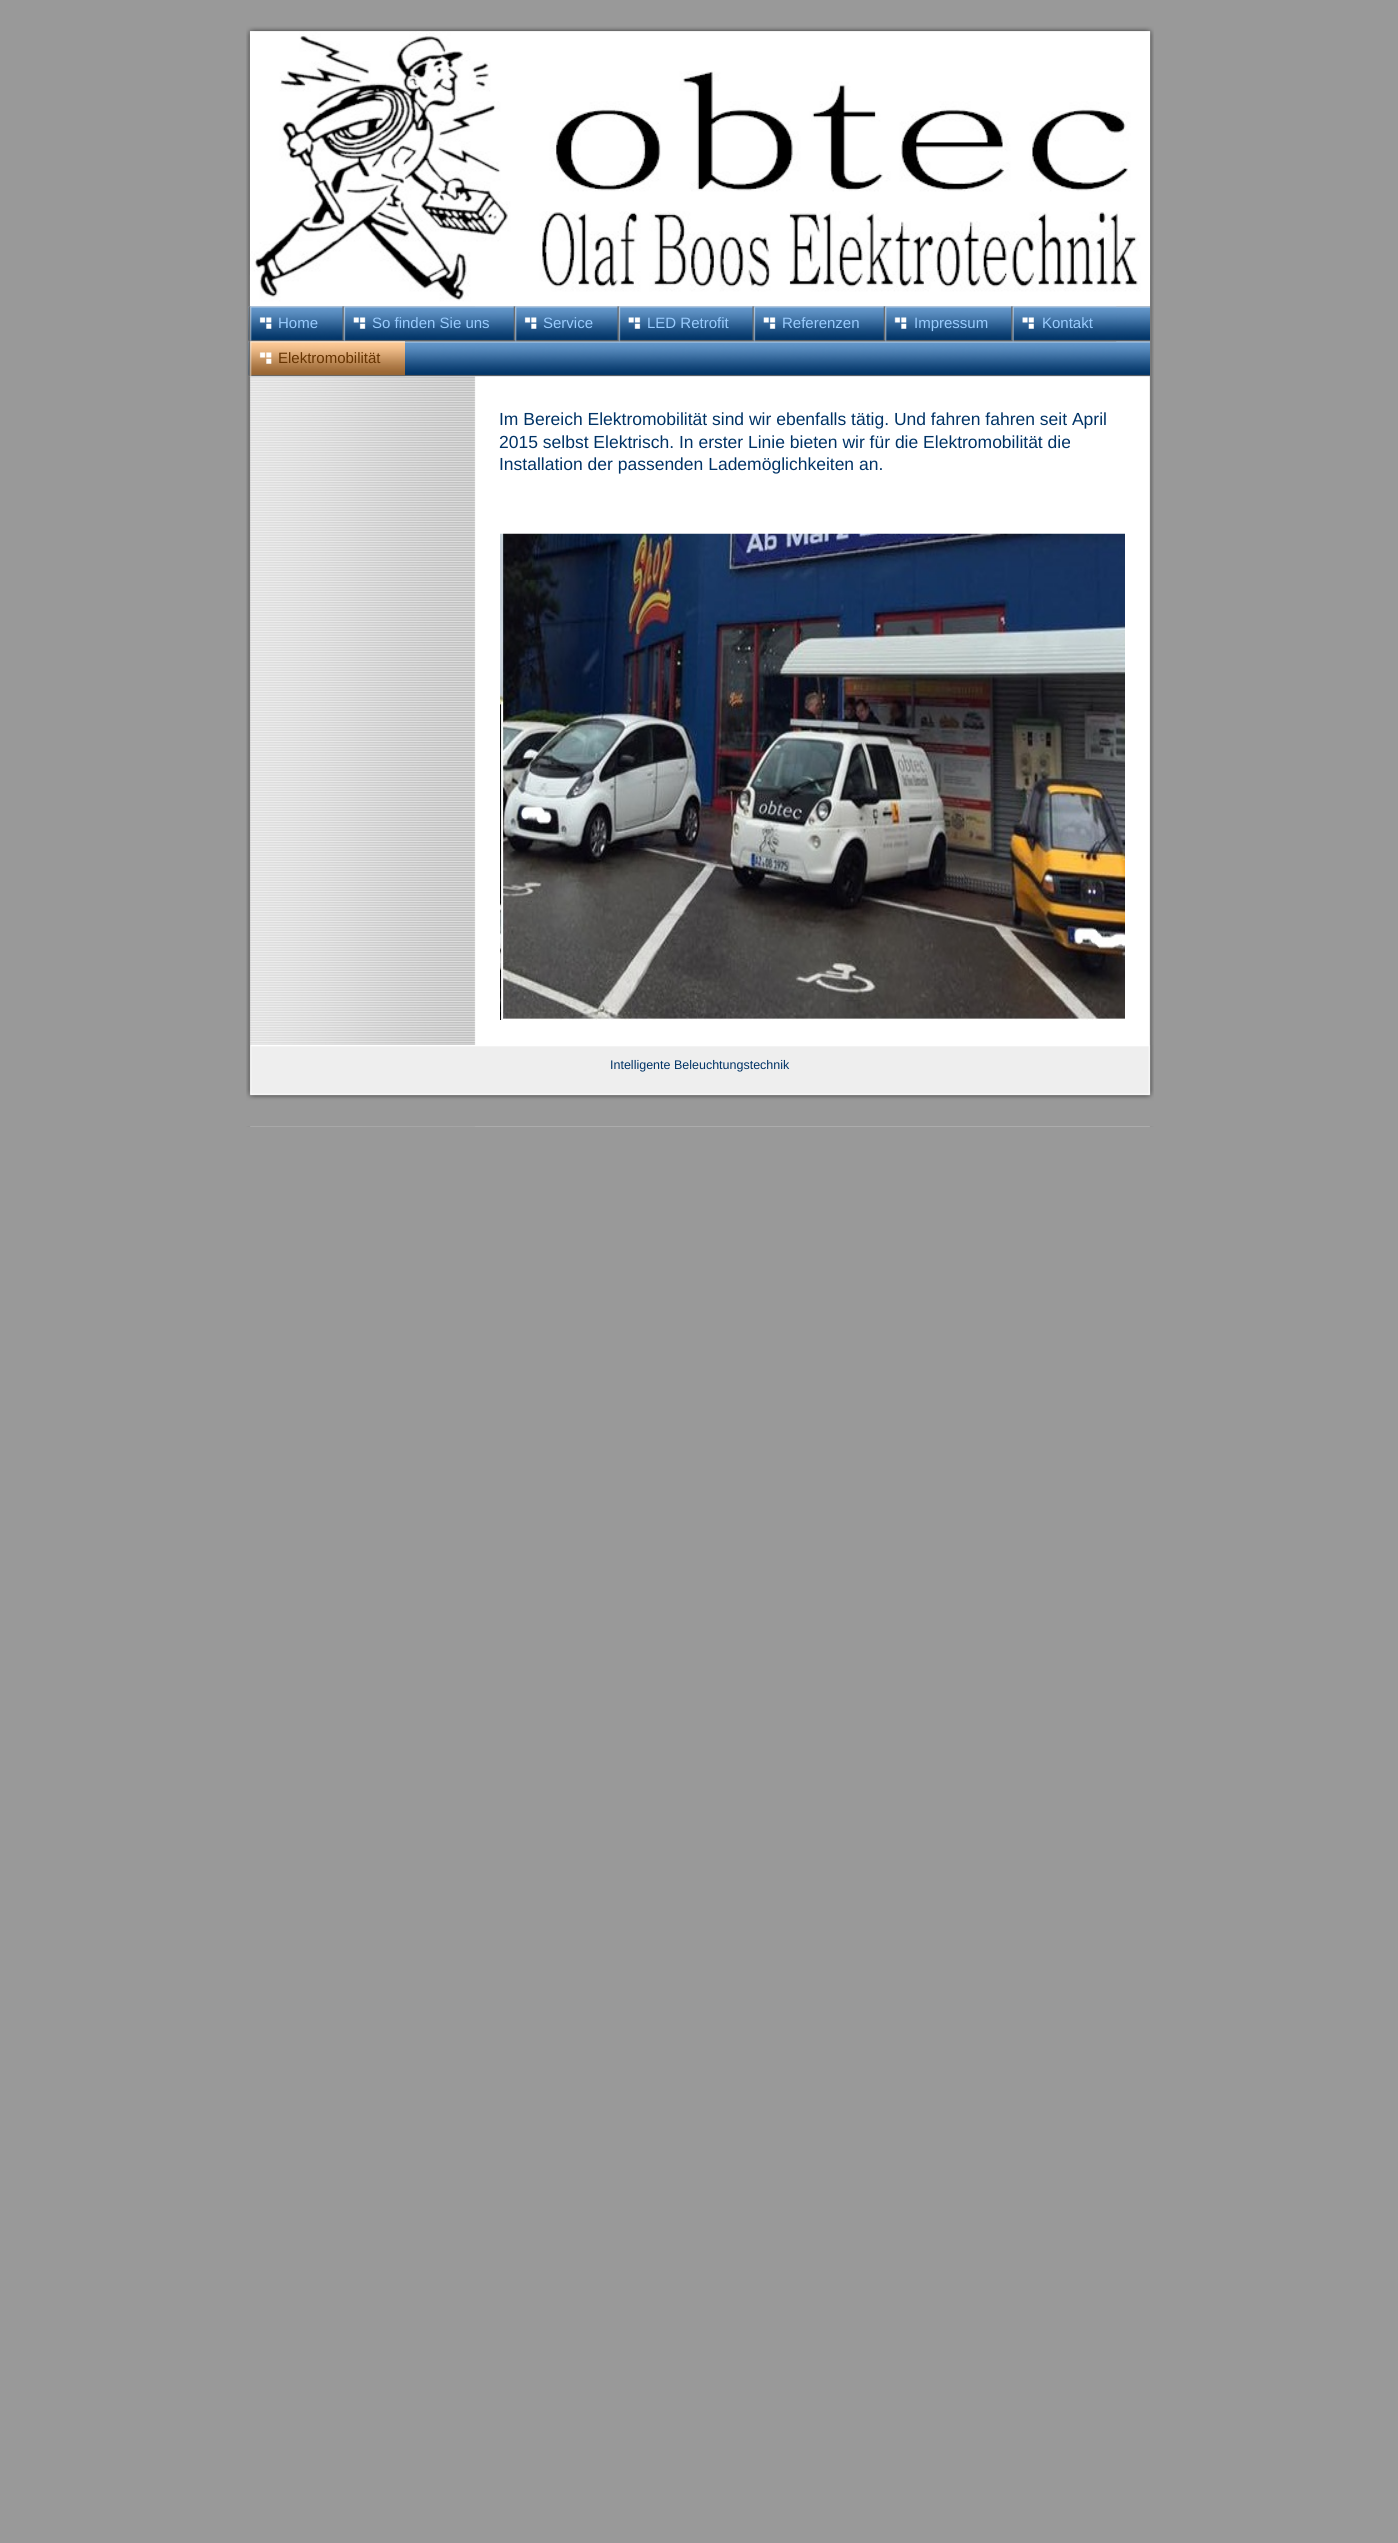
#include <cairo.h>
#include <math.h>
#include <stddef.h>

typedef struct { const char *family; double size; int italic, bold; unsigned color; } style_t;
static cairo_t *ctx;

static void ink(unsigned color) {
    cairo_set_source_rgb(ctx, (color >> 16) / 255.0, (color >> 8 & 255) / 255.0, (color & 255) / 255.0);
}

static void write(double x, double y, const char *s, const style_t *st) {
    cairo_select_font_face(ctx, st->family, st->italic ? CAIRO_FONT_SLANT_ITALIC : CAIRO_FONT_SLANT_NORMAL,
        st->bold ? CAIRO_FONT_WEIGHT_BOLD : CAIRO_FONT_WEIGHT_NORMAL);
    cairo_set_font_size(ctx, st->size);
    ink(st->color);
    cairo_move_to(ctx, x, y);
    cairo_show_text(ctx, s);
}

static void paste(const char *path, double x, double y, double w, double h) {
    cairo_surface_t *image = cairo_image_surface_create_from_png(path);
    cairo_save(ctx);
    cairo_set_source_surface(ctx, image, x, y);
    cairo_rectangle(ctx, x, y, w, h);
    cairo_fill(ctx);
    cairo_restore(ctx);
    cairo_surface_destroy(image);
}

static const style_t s1 = {"Liberation Sans", 15, 0, 0, 0x99ccff};
static const style_t s2 = {"Liberation Sans", 15, 0, 0, 0x663300};
static const style_t s3 = {"Liberation Sans", 17.5, 0, 0, 0x003366};
static const style_t s4 = {"Liberation Sans", 12.5, 0, 0, 0x003366};

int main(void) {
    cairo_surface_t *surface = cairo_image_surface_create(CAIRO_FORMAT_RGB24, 1398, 2543);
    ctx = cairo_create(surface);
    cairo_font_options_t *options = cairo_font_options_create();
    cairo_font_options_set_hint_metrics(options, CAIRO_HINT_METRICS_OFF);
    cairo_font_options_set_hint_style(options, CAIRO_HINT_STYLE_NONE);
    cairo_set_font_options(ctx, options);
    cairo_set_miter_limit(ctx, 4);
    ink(0x999999);
    cairo_paint(ctx);
    paste("pic1.png", 246, 275, 908, 852);
    paste("pic2.png", 246, 0, 908, 275);
    paste("pic3.png", 250, 31, 900, 276);
    paste("pic4.png", 248, 306, 902, 71);
    paste("pic5.png", 249, 306, 94, 36);
    write(278, 328, "Home", &s1);
    paste("pic6.png", 342, 306, 172, 36);
    write(372, 328, "So finden Sie uns", &s1);
    paste("pic7.png", 513, 306, 105, 36);
    write(543, 328, "Service", &s1);
    paste("pic8.png", 617, 306, 136, 36);
    write(647, 328, "LED Retrofit", &s1);
    paste("pic9.png", 752, 306, 132, 36);
    write(782, 328, "Referenzen", &s1);
    paste("pic10.png", 883, 306, 129, 36);
    write(914, 328, "Impressum", &s1);
    paste("pic11.png", 1011, 306, 106, 36);
    write(1042, 328, "Kontakt", &s1);
    paste("pic12.png", 249, 341, 156, 36);
    write(278, 363, "Elektromobilität", &s2);
    write(499, 425, "Im Bereich Elektromobilität sind wir ebenfalls tätig. Und fahren fahren seit April", &s3);
    write(499, 448, "2015 selbst Elektrisch. In erster Linie bieten wir für die Elektromobilität die", &s3);
    write(499, 470, "Installation der passenden Lademöglichkeiten an.", &s3);
    paste("pic13.png", 500, 533, 625, 487);
    paste("pic14.png", 246, 1045, 908, 82);
    write(610, 1069, "Intelligente Beleuchtungstechnik", &s4);
    cairo_surface_write_to_png(surface, "screenshot.png");
    cairo_font_options_destroy(options);
    cairo_destroy(ctx);
    cairo_surface_destroy(surface);
    return 0;
}
